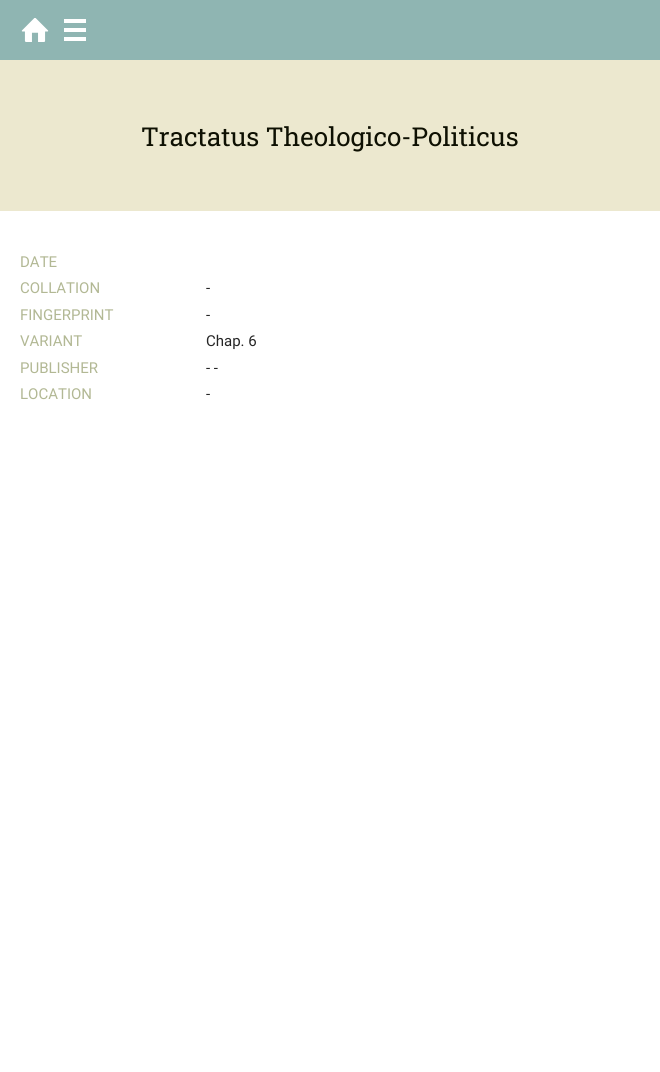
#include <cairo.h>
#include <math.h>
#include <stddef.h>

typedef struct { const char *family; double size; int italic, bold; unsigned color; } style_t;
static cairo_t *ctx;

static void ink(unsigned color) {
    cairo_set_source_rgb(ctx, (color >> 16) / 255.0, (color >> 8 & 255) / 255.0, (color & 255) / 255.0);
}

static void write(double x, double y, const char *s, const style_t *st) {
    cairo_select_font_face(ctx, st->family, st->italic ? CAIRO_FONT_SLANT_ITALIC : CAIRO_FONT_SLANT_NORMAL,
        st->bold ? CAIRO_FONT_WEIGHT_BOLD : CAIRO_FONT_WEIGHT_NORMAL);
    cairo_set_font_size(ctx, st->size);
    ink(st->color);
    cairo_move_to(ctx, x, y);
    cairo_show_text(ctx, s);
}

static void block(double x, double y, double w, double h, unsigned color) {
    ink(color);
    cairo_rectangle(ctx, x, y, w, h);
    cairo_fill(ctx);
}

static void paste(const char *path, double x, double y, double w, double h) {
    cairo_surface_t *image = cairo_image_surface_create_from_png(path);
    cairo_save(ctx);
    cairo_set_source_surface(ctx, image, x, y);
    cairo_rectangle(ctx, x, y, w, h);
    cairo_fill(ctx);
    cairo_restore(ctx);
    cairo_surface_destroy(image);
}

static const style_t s1 = {"Roboto Slab", 26, 0, 0, 0x0e1002};
static const style_t s2 = {"Roboto", 15, 0, 0, 0xb2b894};
static const style_t s3 = {"Roboto", 15, 0, 0, 0x262626};

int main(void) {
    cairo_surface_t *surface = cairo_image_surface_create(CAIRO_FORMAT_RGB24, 660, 1072);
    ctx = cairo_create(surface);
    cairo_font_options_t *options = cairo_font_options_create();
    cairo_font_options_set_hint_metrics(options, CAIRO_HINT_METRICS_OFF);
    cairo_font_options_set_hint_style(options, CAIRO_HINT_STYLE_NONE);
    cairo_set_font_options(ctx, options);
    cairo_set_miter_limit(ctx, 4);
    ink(0xffffff);
    cairo_paint(ctx);
    block(0, 0, 660, 60, 0x8fb5b2);
    paste("pic1.png", 21, 18, 28, 24);
    block(64, 28, 22, 4, 0xffffff);
    block(64, 37, 22, 4, 0xffffff);
    block(64, 19, 22, 4, 0xffffff);
    block(0, 60, 660, 151, 0xece8cf);
    write(141, 146, "Tractatus Theologico-Politicus", &s1);
    write(20, 267, "DATE", &s2);
    write(20, 293, "COLLATION", &s2);
    write(206, 293, "-", &s3);
    write(20, 320, "FINGERPRINT", &s2);
    write(206, 320, "-", &s3);
    write(20, 346, "VARIANT", &s2);
    write(206, 346, "Chap. 6", &s3);
    write(20, 373, "PUBLISHER", &s2);
    write(206, 373, "- -", &s3);
    write(20, 399, "LOCATION", &s2);
    write(206, 399, "-", &s3);
    cairo_surface_write_to_png(surface, "screenshot.png");
    cairo_font_options_destroy(options);
    cairo_destroy(ctx);
    cairo_surface_destroy(surface);
    return 0;
}
